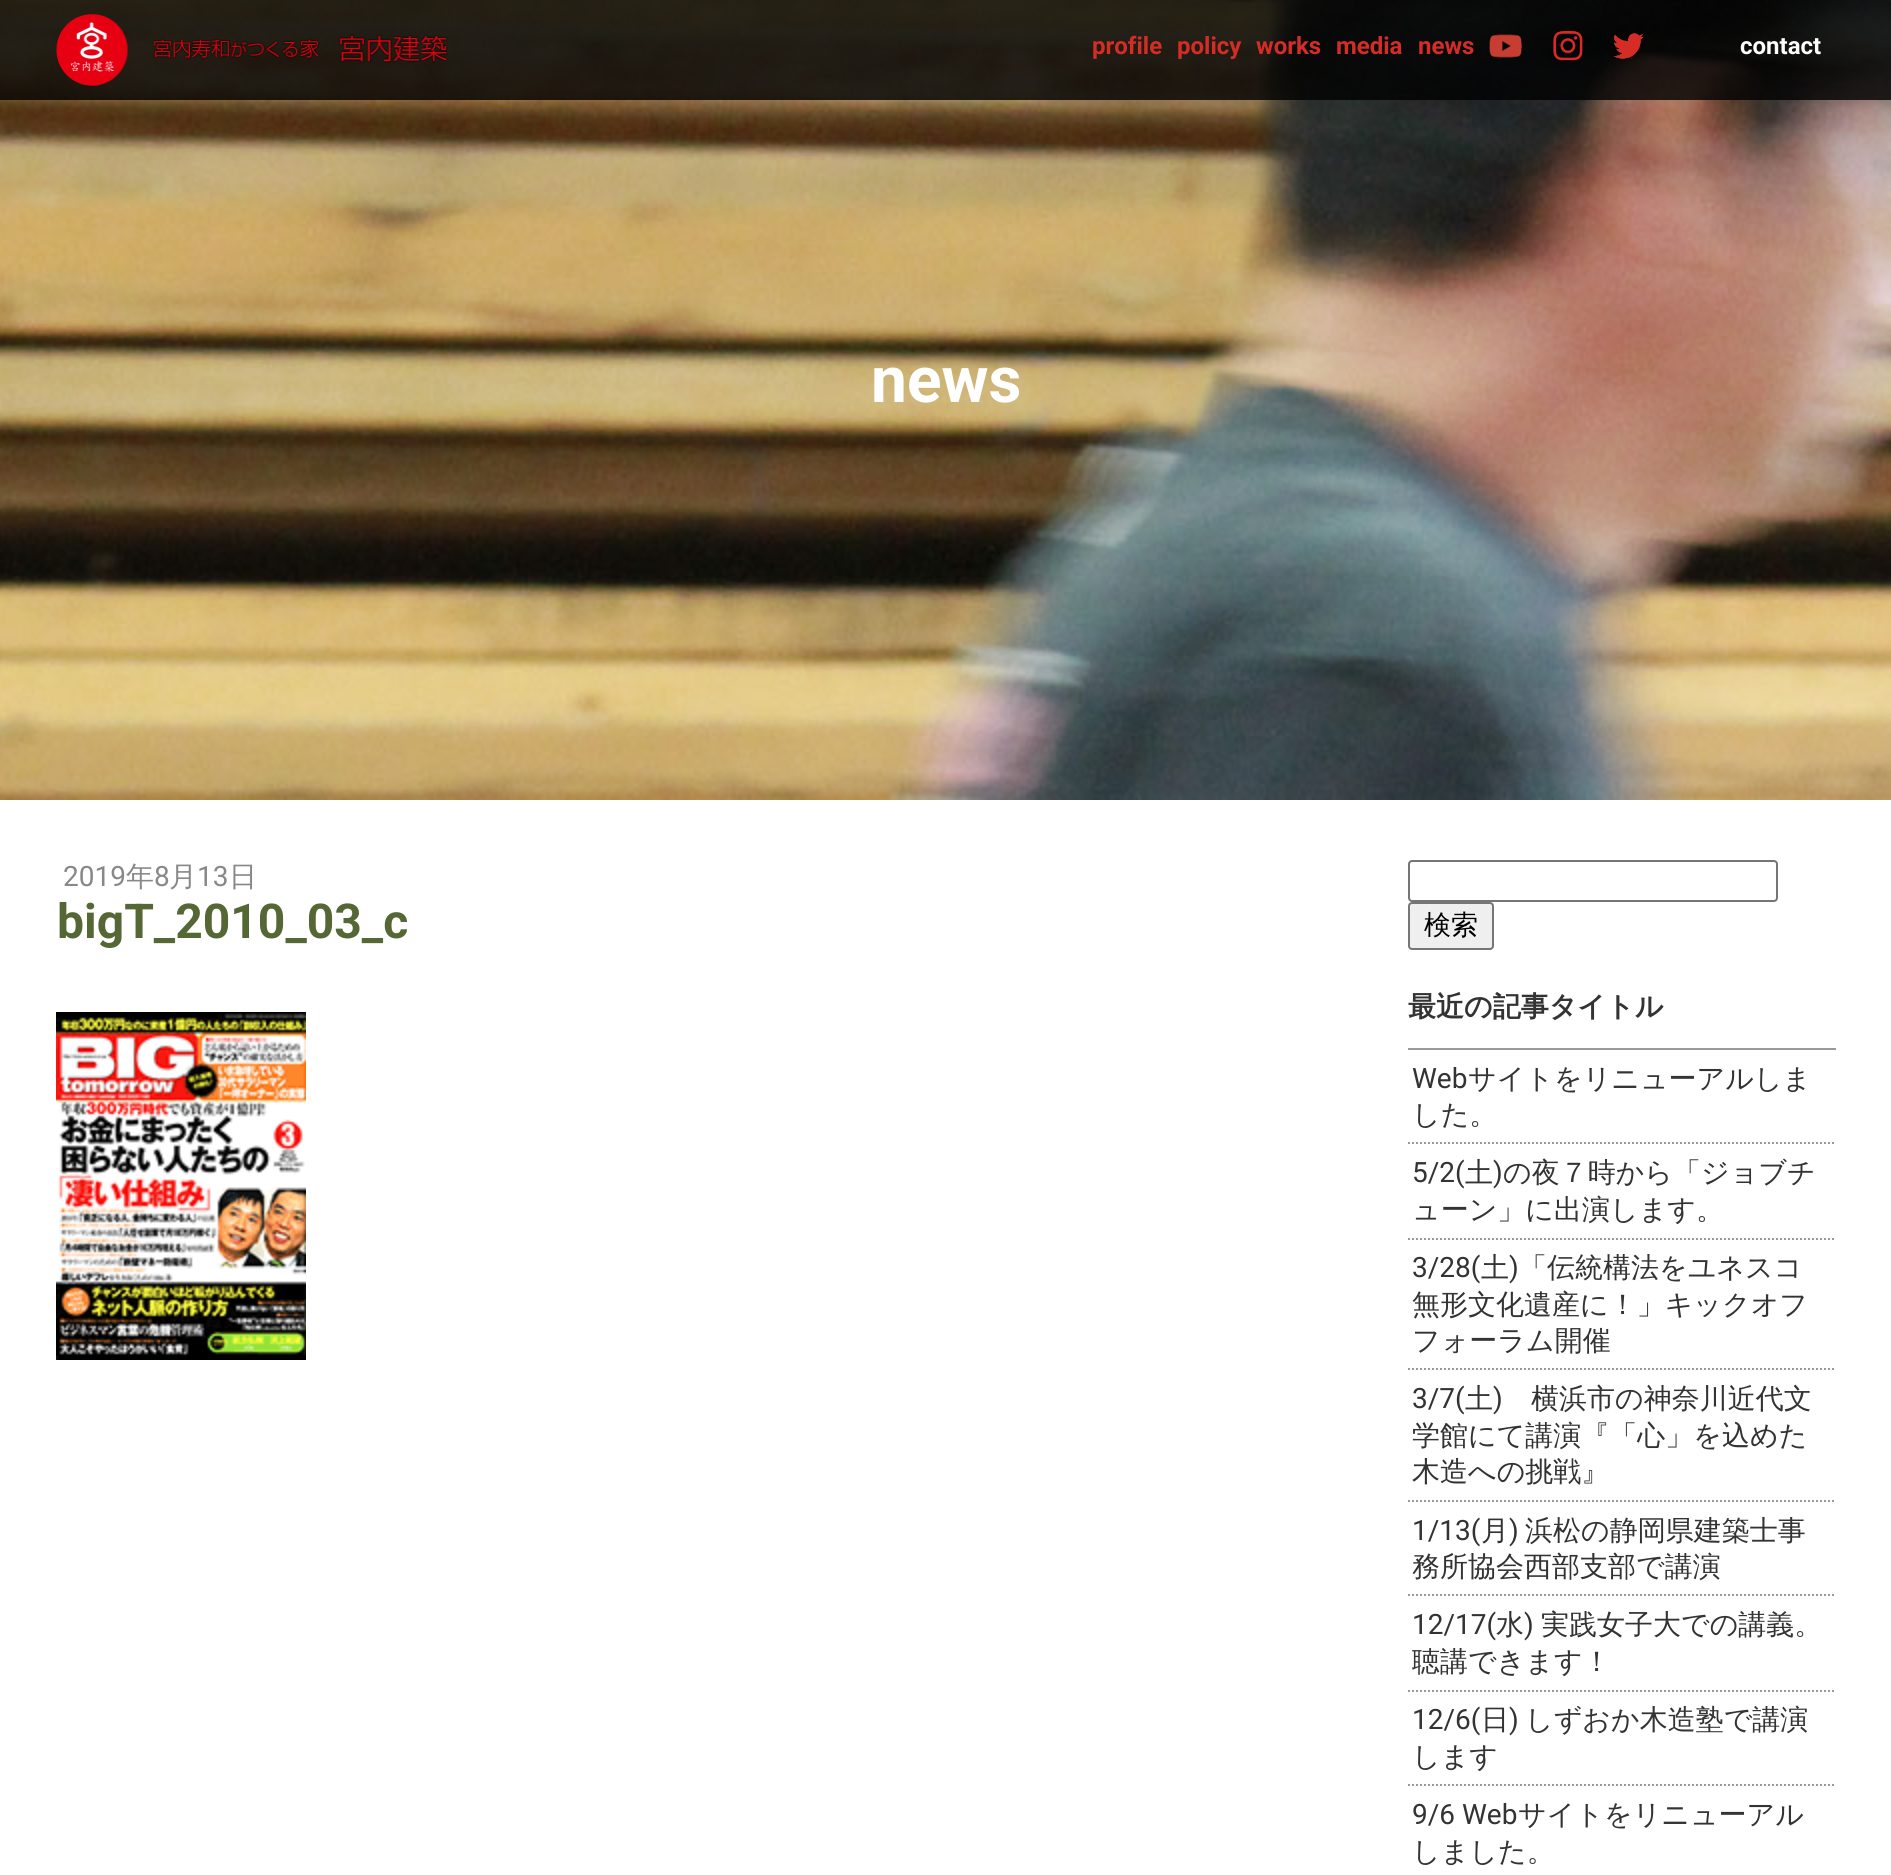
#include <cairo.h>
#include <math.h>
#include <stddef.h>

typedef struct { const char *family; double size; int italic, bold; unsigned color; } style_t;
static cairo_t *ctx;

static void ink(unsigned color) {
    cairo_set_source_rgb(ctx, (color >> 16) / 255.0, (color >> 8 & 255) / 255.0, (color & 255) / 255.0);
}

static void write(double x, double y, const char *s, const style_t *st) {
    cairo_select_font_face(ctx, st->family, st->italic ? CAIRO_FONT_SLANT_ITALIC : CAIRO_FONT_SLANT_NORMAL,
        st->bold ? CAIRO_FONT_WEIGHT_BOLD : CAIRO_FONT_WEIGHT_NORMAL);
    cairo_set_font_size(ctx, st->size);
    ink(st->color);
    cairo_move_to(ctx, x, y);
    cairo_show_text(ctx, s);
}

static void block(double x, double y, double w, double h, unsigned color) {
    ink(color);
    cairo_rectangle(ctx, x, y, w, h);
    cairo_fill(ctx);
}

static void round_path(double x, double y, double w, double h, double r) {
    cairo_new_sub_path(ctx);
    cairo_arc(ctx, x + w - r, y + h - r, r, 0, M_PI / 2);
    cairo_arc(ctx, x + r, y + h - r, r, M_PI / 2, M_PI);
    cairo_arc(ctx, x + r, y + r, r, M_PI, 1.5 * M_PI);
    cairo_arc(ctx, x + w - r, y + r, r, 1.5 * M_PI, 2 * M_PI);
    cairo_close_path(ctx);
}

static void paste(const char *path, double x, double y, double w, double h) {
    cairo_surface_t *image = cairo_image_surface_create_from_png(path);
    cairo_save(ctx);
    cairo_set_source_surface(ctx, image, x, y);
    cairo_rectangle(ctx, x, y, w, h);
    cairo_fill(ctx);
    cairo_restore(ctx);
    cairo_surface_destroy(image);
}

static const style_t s1 = {"Roboto", 24, 0, 1, 0xd52d26};
static const style_t s2 = {"Roboto", 24, 0, 1, 0xffffff};
static const style_t s3 = {"Roboto", 64, 0, 1, 0xffffff};
static const style_t s4 = {"Roboto", 28, 0, 0, 0x888888};
static const style_t s5 = {"WenQuanYi Zen Hei Medium", 28, 0, 0, 0x888888};
static const style_t s6 = {"Roboto", 48, 0, 1, 0x546734};
static const style_t s7 = {"WenQuanYi Zen Hei Medium", 27, 0, 0, 0x000000};
static const style_t s8 = {"WenQuanYi Zen Hei", 28, 0, 1, 0x333333};
static const style_t s9 = {"Roboto", 28, 0, 0, 0x333333};
static const style_t s10 = {"WenQuanYi Zen Hei Medium", 28, 0, 0, 0x333333};

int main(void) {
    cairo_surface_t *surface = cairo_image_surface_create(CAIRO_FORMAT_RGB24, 1891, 1875);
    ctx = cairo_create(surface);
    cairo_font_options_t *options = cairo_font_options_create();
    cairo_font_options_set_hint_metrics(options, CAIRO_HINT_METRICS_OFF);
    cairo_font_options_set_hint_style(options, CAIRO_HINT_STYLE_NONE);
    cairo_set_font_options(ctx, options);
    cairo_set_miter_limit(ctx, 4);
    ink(0xffffff);
    cairo_paint(ctx);
    paste("pic5.png", 0, 0, 1891, 800);
    cairo_set_source_rgba(ctx, 0, 0, 0, 0.8);
    cairo_rectangle(ctx, 0, 0, 1891, 100);
    cairo_fill(ctx);
    paste("pic1.png", 56, 14, 392, 72);
    write(1092, 54, "profile", &s1);
    write(1177, 54, "policy", &s1);
    write(1256, 54, "works", &s1);
    write(1336, 54, "media", &s1);
    write(1418, 54, "news", &s1);
    paste("pic2.png", 1489, 34, 33, 24);
    paste("pic3.png", 1553, 31, 30, 30);
    paste("pic4.png", 1613, 33, 31, 26);
    write(1740, 54, "contact", &s2);
    write(871, 402, "news", &s3);
    write(63, 886, "2019", &s4);
    write(126, 886, "年", &s5);
    write(154, 886, "8", &s4);
    write(169, 886, "月", &s5);
    write(197, 886, "13", &s4);
    write(229, 886, "日", &s5);
    write(57, 938, "bigT_2010_03_c", &s6);
    paste("pic6.png", 56, 1012, 250, 348);
    round_path(1409, 861, 368, 40, 3);
    ink(0x767676);
    cairo_stroke(ctx);
    ink(0xefefef);
    round_path(1409, 903, 84, 46, 3);
    cairo_fill_preserve(ctx);
    ink(0x767676);
    cairo_stroke(ctx);
    write(1424, 934, "検索", &s7);
    write(1408, 1016, "最近の記事タイトル", &s8);
    block(1408, 1048, 428, 2, 0x999999);
    cairo_new_path(ctx);
    cairo_move_to(ctx, 1408, 1143);
    cairo_line_to(ctx, 1836, 1143);
    cairo_set_dash(ctx, (double[]){2, 2}, 2, 0);
    cairo_stroke(ctx);
    write(1412, 1088, "Web", &s9);
    write(1468, 1088, "サイトをリニューアルしま", &s10);
    write(1412, 1124, "した。", &s10);
    cairo_new_path(ctx);
    cairo_move_to(ctx, 1408, 1239);
    cairo_line_to(ctx, 1836, 1239);
    ink(0x999999);
    cairo_stroke(ctx);
    write(1412, 1182, "5/2(", &s9);
    write(1465, 1182, "土", &s10);
    write(1493, 1182, ")", &s9);
    write(1503, 1182, "の夜７時から「ジョブチ", &s10);
    write(1412, 1219, "ューン」に出演します。", &s10);
    cairo_new_path(ctx);
    cairo_move_to(ctx, 1408, 1369);
    cairo_line_to(ctx, 1836, 1369);
    ink(0x999999);
    cairo_stroke(ctx);
    write(1412, 1277, "3/28(", &s9);
    write(1481, 1277, "土", &s10);
    write(1509, 1277, ")", &s9);
    write(1519, 1277, "「伝統構法をユネスコ", &s10);
    write(1412, 1314, "無形文化遺産に！」キックオフ", &s10);
    write(1412, 1350, "フォーラム開催", &s10);
    cairo_new_path(ctx);
    cairo_move_to(ctx, 1408, 1501);
    cairo_line_to(ctx, 1836, 1501);
    ink(0x999999);
    cairo_stroke(ctx);
    write(1412, 1408, "3/7(", &s9);
    write(1465, 1408, "土", &s10);
    write(1493, 1408, ")", &s9);
    write(1531, 1408, "横浜市の神奈川近代文", &s10);
    write(1412, 1445, "学館にて講演『「心」を込めた", &s10);
    write(1412, 1481, "木造への挑戦』", &s10);
    cairo_new_path(ctx);
    cairo_move_to(ctx, 1408, 1595);
    cairo_line_to(ctx, 1836, 1595);
    ink(0x999999);
    cairo_stroke(ctx);
    write(1412, 1540, "1/13(", &s9);
    write(1481, 1540, "月", &s10);
    write(1509, 1540, ")", &s9);
    write(1525, 1540, "浜松の静岡県建築士事", &s10);
    write(1412, 1576, "務所協会西部支部で講演", &s10);
    cairo_new_path(ctx);
    cairo_move_to(ctx, 1408, 1691);
    cairo_line_to(ctx, 1836, 1691);
    ink(0x999999);
    cairo_stroke(ctx);
    write(1412, 1634, "12/17(", &s9);
    write(1496, 1634, "水", &s10);
    write(1524, 1634, ")", &s9);
    write(1541, 1634, "実践女子大での講義。", &s10);
    write(1412, 1671, "聴講できます！", &s10);
    cairo_new_path(ctx);
    cairo_move_to(ctx, 1408, 1785);
    cairo_line_to(ctx, 1836, 1785);
    ink(0x999999);
    cairo_stroke(ctx);
    write(1412, 1729, "12/6(", &s9);
    write(1481, 1729, "日", &s10);
    write(1509, 1729, ")", &s9);
    write(1525, 1729, "しずおか木造塾で講演", &s10);
    write(1412, 1766, "します", &s10);
    write(1412, 1824, "9/6 Web", &s9);
    write(1518, 1824, "サイトをリニューアル", &s10);
    write(1412, 1861, "しました。", &s10);
    cairo_surface_write_to_png(surface, "screenshot.png");
    cairo_font_options_destroy(options);
    cairo_destroy(ctx);
    cairo_surface_destroy(surface);
    return 0;
}
